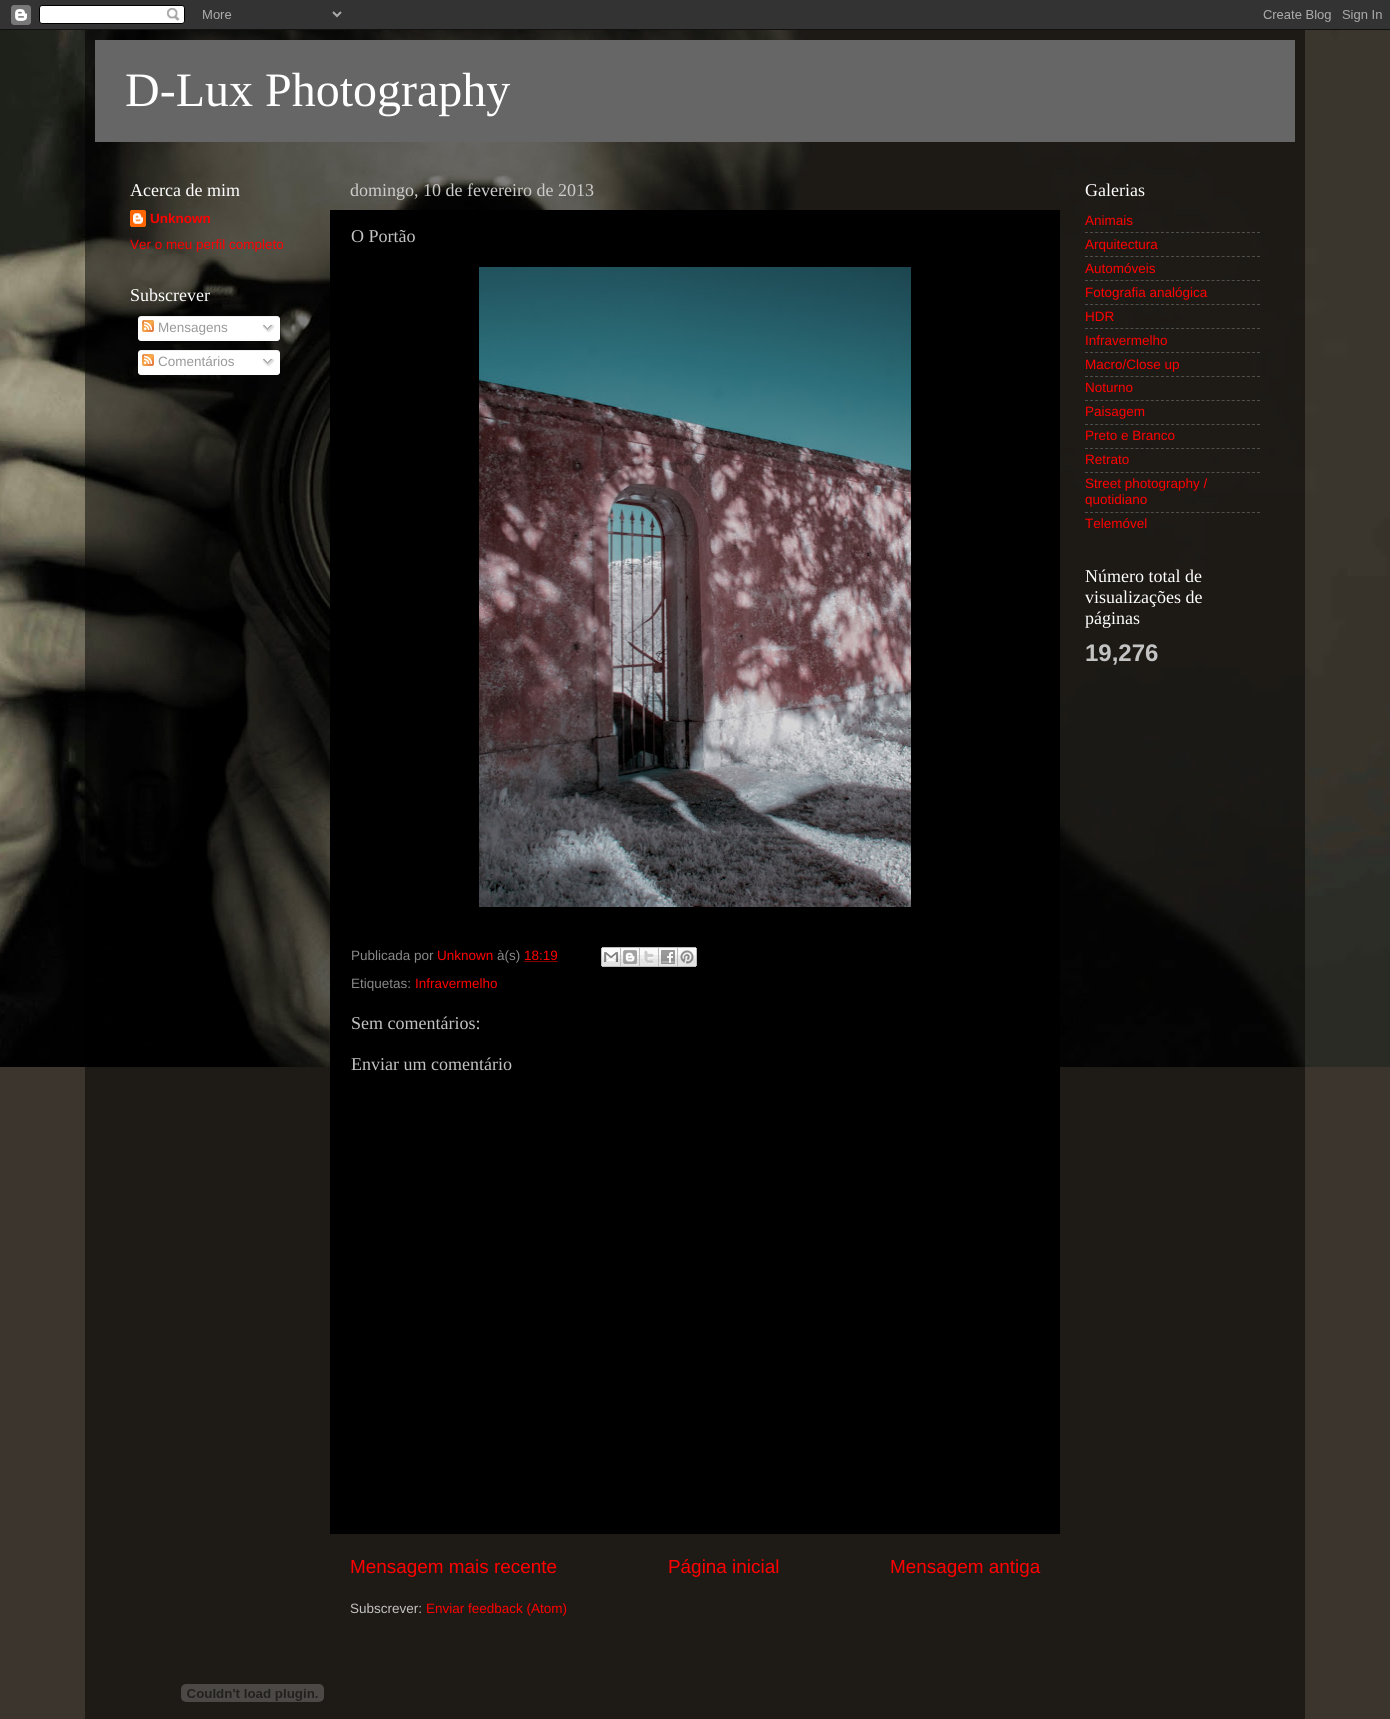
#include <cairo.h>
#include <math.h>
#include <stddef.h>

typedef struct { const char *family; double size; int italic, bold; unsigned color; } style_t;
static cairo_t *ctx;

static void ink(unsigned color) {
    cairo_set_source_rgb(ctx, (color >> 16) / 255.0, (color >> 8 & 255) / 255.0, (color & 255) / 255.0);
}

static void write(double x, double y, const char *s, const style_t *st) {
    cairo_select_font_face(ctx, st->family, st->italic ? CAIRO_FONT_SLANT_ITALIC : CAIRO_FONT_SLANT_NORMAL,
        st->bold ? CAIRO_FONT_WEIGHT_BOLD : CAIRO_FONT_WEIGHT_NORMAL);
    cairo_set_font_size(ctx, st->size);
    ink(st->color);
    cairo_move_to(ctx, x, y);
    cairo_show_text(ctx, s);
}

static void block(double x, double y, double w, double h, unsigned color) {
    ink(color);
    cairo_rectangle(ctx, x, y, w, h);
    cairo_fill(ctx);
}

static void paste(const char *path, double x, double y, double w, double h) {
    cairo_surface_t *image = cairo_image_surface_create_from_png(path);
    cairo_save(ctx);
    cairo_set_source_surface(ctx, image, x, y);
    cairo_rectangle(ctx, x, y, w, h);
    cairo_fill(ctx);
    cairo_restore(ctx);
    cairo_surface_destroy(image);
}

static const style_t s1 = {"Liberation Serif", 48, 0, 0, 0xffffff};
static const style_t s2 = {"Liberation Serif", 18, 0, 0, 0xffffff};
static const style_t s3 = {"Liberation Sans", 13.5, 0, 1, 0xff0000};
static const style_t s4 = {"Liberation Sans", 13.5, 0, 0, 0xff0000};
static const style_t s5 = {"Liberation Sans", 13.5, 0, 0, 0x999999};
static const style_t s6 = {"Liberation Serif", 18, 0, 0, 0xcccccc};
static const style_t s7 = {"Liberation Serif", 18, 0, 0, 0xc3c3c3};
static const style_t s8 = {"Liberation Sans", 13.5, 0, 0, 0x898989};
static const style_t s9 = {"Liberation Sans", 18.9, 0, 0, 0xff0000};
static const style_t s10 = {"Liberation Sans", 13.5, 0, 0, 0xc3c3c3};
static const style_t s11 = {"Liberation Sans", 24, 0, 1, 0xc3c3c3};

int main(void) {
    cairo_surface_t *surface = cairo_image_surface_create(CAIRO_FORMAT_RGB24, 1390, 1719);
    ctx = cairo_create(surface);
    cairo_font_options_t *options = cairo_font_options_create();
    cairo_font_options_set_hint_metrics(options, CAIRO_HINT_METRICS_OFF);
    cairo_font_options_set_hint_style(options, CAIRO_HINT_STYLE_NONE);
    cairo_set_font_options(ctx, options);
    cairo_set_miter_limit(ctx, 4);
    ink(0x3c352d);
    cairo_paint(ctx);
    paste("pic1.png", 0, 30, 1390, 1037);
    paste("pic2.png", 0, 0, 1390, 30);
    cairo_set_source_rgba(ctx, 0, 0, 0, 0.5);
    cairo_rectangle(ctx, 85, 30, 1220, 1689);
    cairo_fill(ctx);
    block(95, 40, 1200, 102, 0x666666);
    write(125, 106, "D-Lux Photography", &s1);
    write(130, 196, "Acerca de mim", &s2);
    paste("pic3.png", 130, 210, 16, 17);
    write(150, 223, "Unknown", &s3);
    write(130, 249, "Ver o meu perfil completo", &s4);
    write(130, 301, "Subscrever", &s2);
    paste("pic4.png", 138, 316, 143, 23);
    paste("pic5.png", 142, 320, 12, 12);
    write(158, 332, "Mensagens", &s5);
    paste("pic6.png", 262, 324, 13, 9);
    paste("pic7.png", 138, 339, 142, 3);
    paste("pic8.png", 138, 349, 143, 24);
    paste("pic5.png", 142, 354, 12, 12);
    write(158, 366, "Comentários", &s5);
    paste("pic6.png", 262, 358, 13, 9);
    paste("pic9.png", 138, 373, 142, 2);
    write(350, 196, "domingo, 10 de fevereiro de 2013", &s6);
    block(330, 210, 730, 1324, 0x000000);
    write(351, 242, "O Portão", &s7);
    paste("pic10.png", 479, 267, 432, 640);
    write(351, 960, "Publicada por", &s8);
    write(437, 960, "Unknown", &s4);
    write(497, 960, "à(s)", &s8);
    write(524, 960, "18:19", &s4);
    cairo_new_path(ctx);
    cairo_move_to(ctx, 524.5, 961.5);
    cairo_line_to(ctx, 558, 961.5);
    cairo_set_line_width(ctx, 1);
    cairo_set_dash(ctx, (double[]){1, 1}, 2, 0);
    cairo_stroke(ctx);
    paste("pic11.png", 601, 947, 20, 20);
    paste("pic12.png", 621, 947, 19, 20);
    paste("pic13.png", 640, 947, 19, 20);
    paste("pic14.png", 659, 947, 19, 20);
    paste("pic15.png", 678, 947, 19, 20);
    write(351, 988, "Etiquetas:", &s8);
    write(415, 988, "Infravermelho", &s4);
    write(351, 1029, "Sem comentários:", &s7);
    write(351, 1070, "Enviar um comentário", &s7);
    write(350, 1573, "Mensagem mais recente", &s9);
    write(668, 1573, "Página inicial", &s9);
    write(890, 1573, "Mensagem antiga", &s9);
    write(350, 1613, "Subscrever:", &s10);
    write(426, 1613, "Enviar feedback (Atom)", &s4);
    write(1085, 196, "Galerias", &s2);
    write(1085, 225, "Animais", &s4);
    cairo_new_path(ctx);
    cairo_move_to(ctx, 1085, 232.5);
    cairo_line_to(ctx, 1260, 232.5);
    ink(0x4f4e4c);
    cairo_set_dash(ctx, (double[]){3, 2.06}, 2, 0);
    cairo_stroke(ctx);
    write(1085, 249, "Arquitectura", &s4);
    cairo_new_path(ctx);
    cairo_move_to(ctx, 1085, 256.5);
    cairo_line_to(ctx, 1260, 256.5);
    ink(0x4f4e4c);
    cairo_stroke(ctx);
    write(1085, 273, "Automóveis", &s4);
    cairo_new_path(ctx);
    cairo_move_to(ctx, 1085, 280.5);
    cairo_line_to(ctx, 1260, 280.5);
    ink(0x4f4e4c);
    cairo_stroke(ctx);
    write(1085, 297, "Fotografia analógica", &s4);
    cairo_new_path(ctx);
    cairo_move_to(ctx, 1085, 304.5);
    cairo_line_to(ctx, 1260, 304.5);
    ink(0x4f4e4c);
    cairo_stroke(ctx);
    write(1085, 321, "HDR", &s4);
    cairo_new_path(ctx);
    cairo_move_to(ctx, 1085, 328.5);
    cairo_line_to(ctx, 1260, 328.5);
    ink(0x4f4e4c);
    cairo_stroke(ctx);
    write(1085, 345, "Infravermelho", &s4);
    cairo_new_path(ctx);
    cairo_move_to(ctx, 1085, 352.5);
    cairo_line_to(ctx, 1260, 352.5);
    ink(0x4f4e4c);
    cairo_stroke(ctx);
    write(1085, 369, "Macro/Close up", &s4);
    cairo_new_path(ctx);
    cairo_move_to(ctx, 1085, 376.5);
    cairo_line_to(ctx, 1260, 376.5);
    ink(0x4f4e4c);
    cairo_stroke(ctx);
    write(1085, 392, "Noturno", &s4);
    cairo_new_path(ctx);
    cairo_move_to(ctx, 1085, 400.5);
    cairo_line_to(ctx, 1260, 400.5);
    ink(0x4f4e4c);
    cairo_stroke(ctx);
    write(1085, 416, "Paisagem", &s4);
    cairo_new_path(ctx);
    cairo_move_to(ctx, 1085, 424.5);
    cairo_line_to(ctx, 1260, 424.5);
    ink(0x4f4e4c);
    cairo_stroke(ctx);
    write(1085, 440, "Preto e Branco", &s4);
    cairo_new_path(ctx);
    cairo_move_to(ctx, 1085, 448.5);
    cairo_line_to(ctx, 1260, 448.5);
    ink(0x4f4e4c);
    cairo_stroke(ctx);
    write(1085, 464, "Retrato", &s4);
    cairo_new_path(ctx);
    cairo_move_to(ctx, 1085, 472.5);
    cairo_line_to(ctx, 1260, 472.5);
    ink(0x4f4e4c);
    cairo_stroke(ctx);
    write(1085, 488, "Street photography /", &s4);
    write(1085, 504, "quotidiano", &s4);
    cairo_new_path(ctx);
    cairo_move_to(ctx, 1085, 512.5);
    cairo_line_to(ctx, 1260, 512.5);
    ink(0x4f4d4b);
    cairo_stroke(ctx);
    write(1085, 528, "Telemóvel", &s4);
    write(1085, 582, "Número total de", &s2);
    write(1085, 603, "visualizações de", &s2);
    write(1085, 624, "páginas", &s2);
    write(1085, 661, "19,276", &s11);
    paste("pic16.png", 181, 1684, 143, 18);
    cairo_surface_write_to_png(surface, "screenshot.png");
    cairo_font_options_destroy(options);
    cairo_destroy(ctx);
    cairo_surface_destroy(surface);
    return 0;
}
